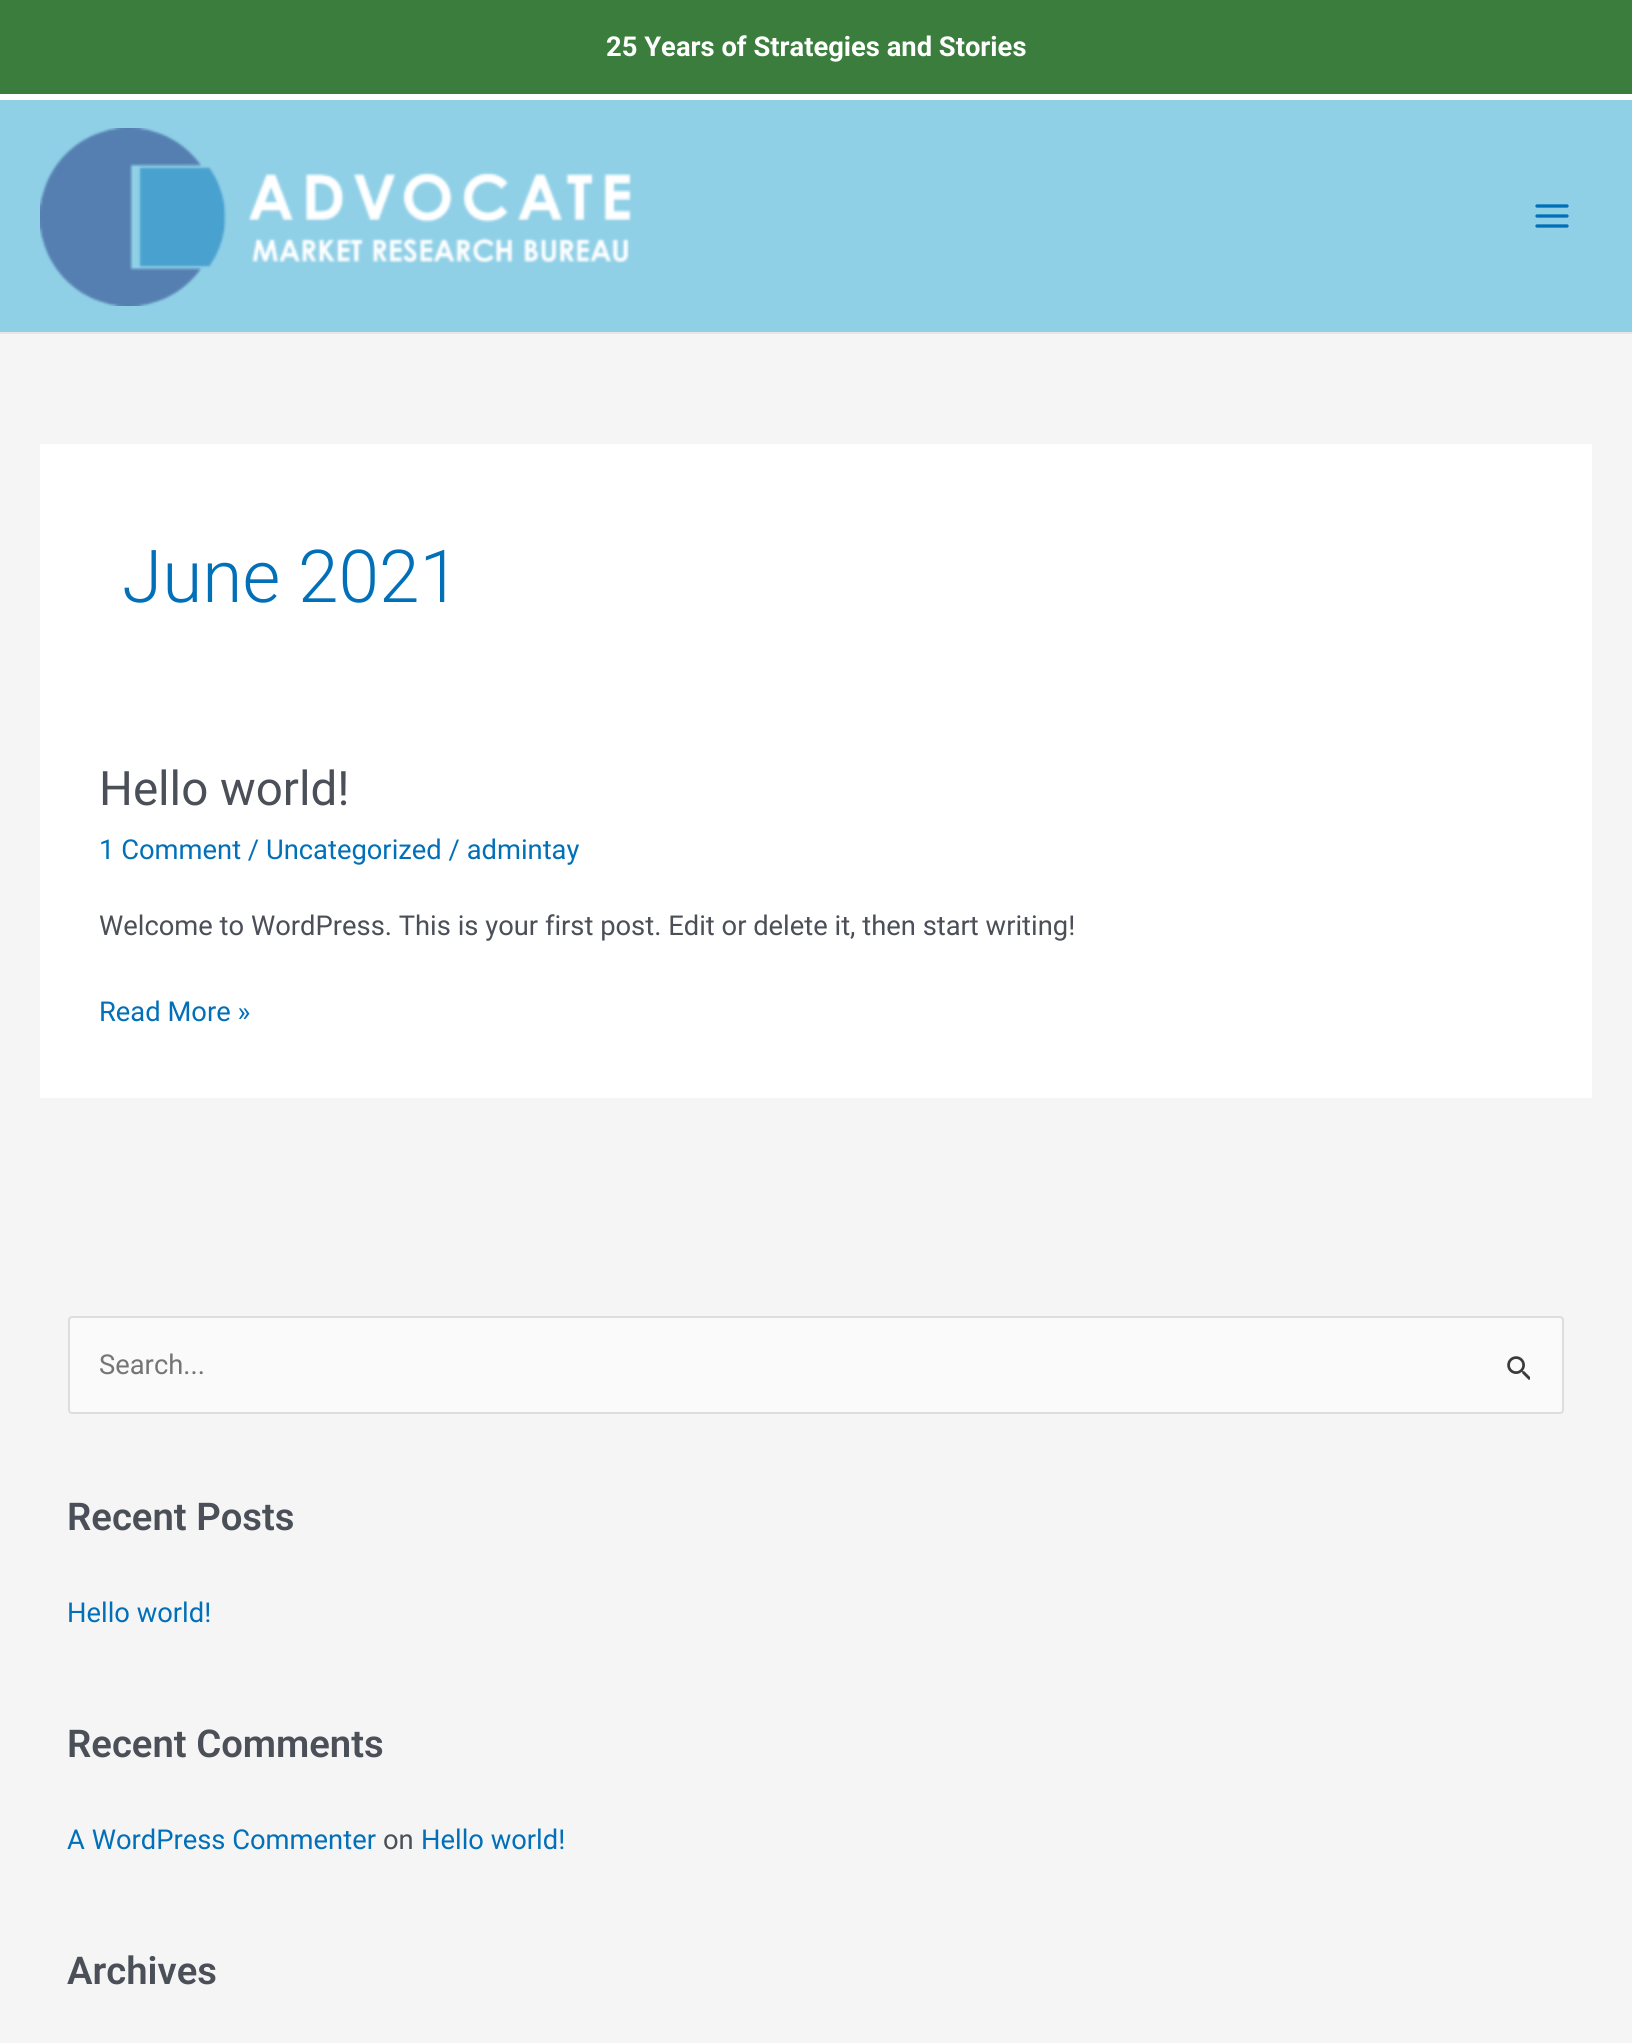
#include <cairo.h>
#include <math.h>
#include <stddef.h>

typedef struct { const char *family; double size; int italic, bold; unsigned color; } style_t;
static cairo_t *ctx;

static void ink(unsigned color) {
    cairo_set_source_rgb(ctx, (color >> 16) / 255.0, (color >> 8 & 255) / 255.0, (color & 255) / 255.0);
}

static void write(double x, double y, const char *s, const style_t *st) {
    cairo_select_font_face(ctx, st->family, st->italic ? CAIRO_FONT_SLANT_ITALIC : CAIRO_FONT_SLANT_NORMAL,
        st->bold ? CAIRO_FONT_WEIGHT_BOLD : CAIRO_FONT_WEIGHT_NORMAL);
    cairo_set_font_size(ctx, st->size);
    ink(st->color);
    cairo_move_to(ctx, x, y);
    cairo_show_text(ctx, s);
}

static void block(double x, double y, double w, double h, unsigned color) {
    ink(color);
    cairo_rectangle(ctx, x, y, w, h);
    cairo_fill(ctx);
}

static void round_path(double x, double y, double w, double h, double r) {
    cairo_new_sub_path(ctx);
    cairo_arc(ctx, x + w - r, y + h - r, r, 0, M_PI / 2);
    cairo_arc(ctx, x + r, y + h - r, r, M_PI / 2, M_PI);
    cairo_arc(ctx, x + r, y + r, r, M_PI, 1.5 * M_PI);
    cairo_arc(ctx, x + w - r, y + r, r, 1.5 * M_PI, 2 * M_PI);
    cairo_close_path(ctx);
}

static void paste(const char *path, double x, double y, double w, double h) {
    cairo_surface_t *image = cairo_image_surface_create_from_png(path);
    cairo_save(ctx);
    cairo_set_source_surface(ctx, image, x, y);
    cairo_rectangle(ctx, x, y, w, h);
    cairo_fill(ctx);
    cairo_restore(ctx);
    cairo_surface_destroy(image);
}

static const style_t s1 = {"Roboto", 27.35, 0, 1, 0xffffff};
static const style_t s2 = {"Roboto Light", 73, 0, 0, 0x0170b9};
static const style_t s3 = {"Roboto", 47.5, 0, 0, 0x4b4f58};
static const style_t s4 = {"Roboto", 27.35, 0, 0, 0x0170b9};
static const style_t s5 = {"Roboto", 27.35, 0, 0, 0x4b4f58};
static const style_t s6 = {"Roboto", 27.35, 0, 0, 0x757575};
static const style_t s7 = {"Roboto SemiBold", 38.25, 0, 0, 0x4b4f58};

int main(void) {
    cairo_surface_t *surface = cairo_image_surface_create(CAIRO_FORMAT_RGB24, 1632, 2043);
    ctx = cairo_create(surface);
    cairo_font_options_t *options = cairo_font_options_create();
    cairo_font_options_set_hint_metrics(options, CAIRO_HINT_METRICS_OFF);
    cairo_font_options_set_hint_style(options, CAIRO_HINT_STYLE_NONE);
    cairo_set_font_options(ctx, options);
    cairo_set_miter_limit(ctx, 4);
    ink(0xf5f5f5);
    cairo_paint(ctx);
    block(0, 0, 1632, 94, 0x3a7d3c);
    block(0, 94, 1632, 6, 0xffffff);
    write(606, 56, "25 Years of Strategies and Stories", &s1);
    block(0, 100, 1632, 232, 0x90d0e7);
    block(0, 332, 1632, 2, 0xe5e5e5);
    paste("pic1.png", 40, 128, 592, 178);
    paste("pic2.png", 1535, 204, 34, 24);
    block(40, 444, 1552, 654, 0xffffff);
    write(122, 602, "June 2021", &s2);
    write(99, 805, "Hello world!", &s3);
    write(99, 859, "1 Comment / Uncategorized / admintay", &s4);
    write(99, 935, "Welcome to WordPress. This is your first post. Edit or delete it, then start writing!", &s5);
    write(99, 1021, "Read More »", &s4);
    ink(0xfafafa);
    round_path(69, 1317, 1494, 96, 3);
    cairo_fill_preserve(ctx);
    ink(0xdddddd);
    cairo_stroke(ctx);
    write(99, 1374, "Search...", &s6);
    paste("pic3.png", 1507, 1356, 23, 24);
    write(67, 1530, "Recent Posts", &s7);
    write(67, 1622, "Hello world!", &s4);
    write(67, 1757, "Recent Comments", &s7);
    write(67, 1849, "A WordPress Commenter", &s4);
    write(383, 1849, "on", &s5);
    write(421, 1849, "Hello world!", &s4);
    write(67, 1984, "Archives", &s7);
    cairo_surface_write_to_png(surface, "screenshot.png");
    cairo_font_options_destroy(options);
    cairo_destroy(ctx);
    cairo_surface_destroy(surface);
    return 0;
}
